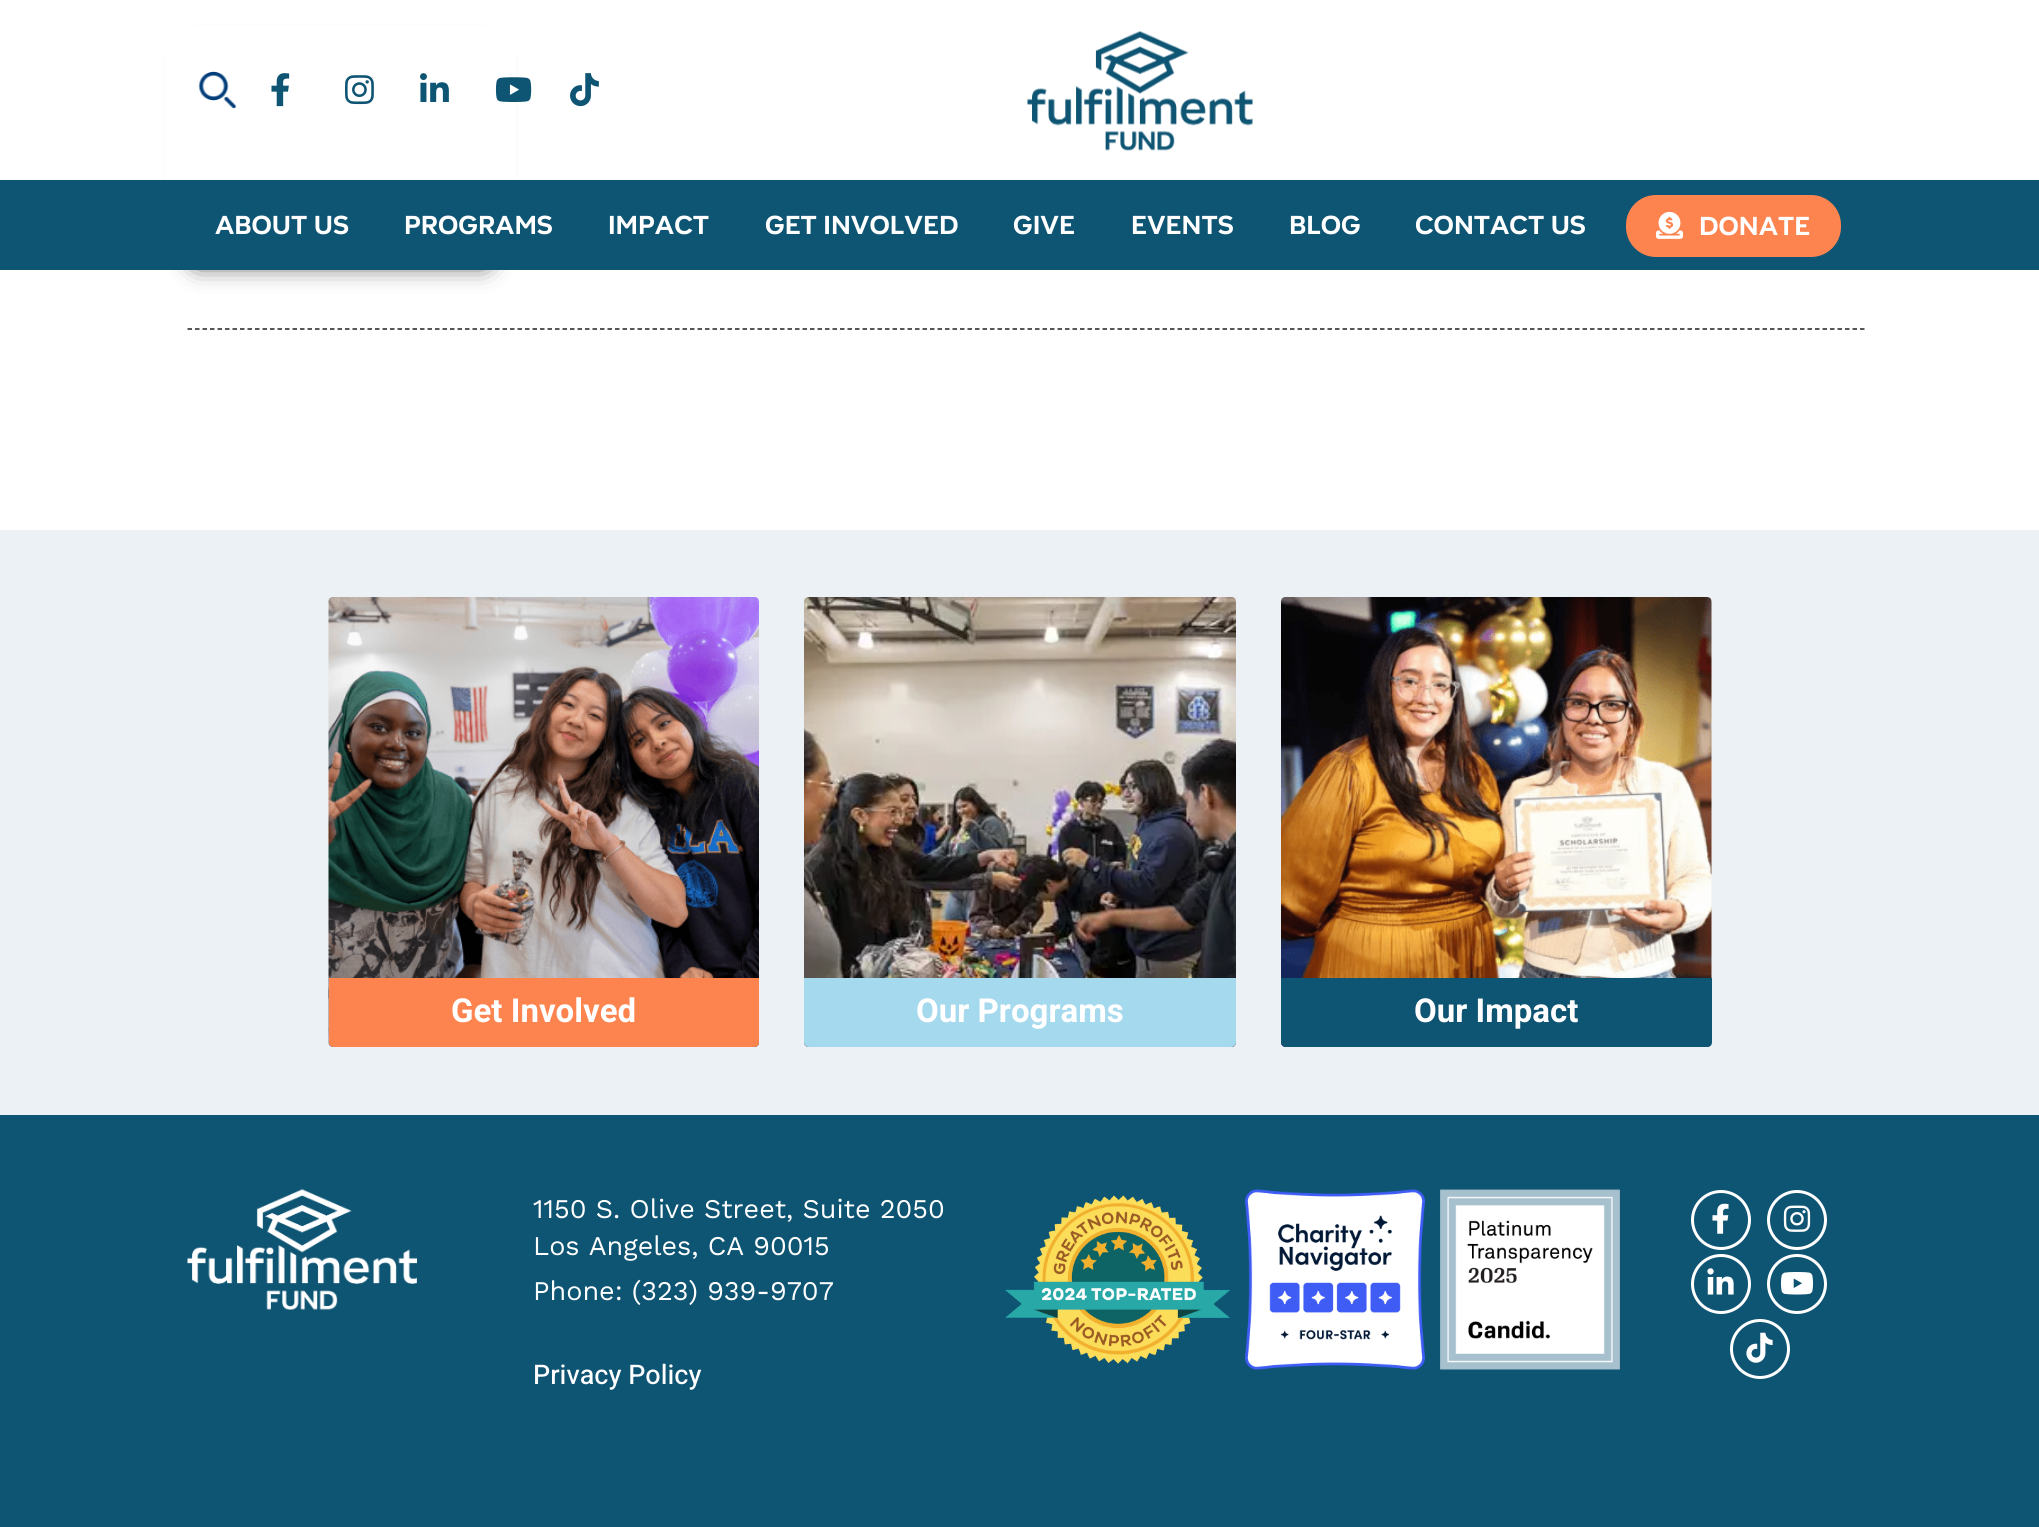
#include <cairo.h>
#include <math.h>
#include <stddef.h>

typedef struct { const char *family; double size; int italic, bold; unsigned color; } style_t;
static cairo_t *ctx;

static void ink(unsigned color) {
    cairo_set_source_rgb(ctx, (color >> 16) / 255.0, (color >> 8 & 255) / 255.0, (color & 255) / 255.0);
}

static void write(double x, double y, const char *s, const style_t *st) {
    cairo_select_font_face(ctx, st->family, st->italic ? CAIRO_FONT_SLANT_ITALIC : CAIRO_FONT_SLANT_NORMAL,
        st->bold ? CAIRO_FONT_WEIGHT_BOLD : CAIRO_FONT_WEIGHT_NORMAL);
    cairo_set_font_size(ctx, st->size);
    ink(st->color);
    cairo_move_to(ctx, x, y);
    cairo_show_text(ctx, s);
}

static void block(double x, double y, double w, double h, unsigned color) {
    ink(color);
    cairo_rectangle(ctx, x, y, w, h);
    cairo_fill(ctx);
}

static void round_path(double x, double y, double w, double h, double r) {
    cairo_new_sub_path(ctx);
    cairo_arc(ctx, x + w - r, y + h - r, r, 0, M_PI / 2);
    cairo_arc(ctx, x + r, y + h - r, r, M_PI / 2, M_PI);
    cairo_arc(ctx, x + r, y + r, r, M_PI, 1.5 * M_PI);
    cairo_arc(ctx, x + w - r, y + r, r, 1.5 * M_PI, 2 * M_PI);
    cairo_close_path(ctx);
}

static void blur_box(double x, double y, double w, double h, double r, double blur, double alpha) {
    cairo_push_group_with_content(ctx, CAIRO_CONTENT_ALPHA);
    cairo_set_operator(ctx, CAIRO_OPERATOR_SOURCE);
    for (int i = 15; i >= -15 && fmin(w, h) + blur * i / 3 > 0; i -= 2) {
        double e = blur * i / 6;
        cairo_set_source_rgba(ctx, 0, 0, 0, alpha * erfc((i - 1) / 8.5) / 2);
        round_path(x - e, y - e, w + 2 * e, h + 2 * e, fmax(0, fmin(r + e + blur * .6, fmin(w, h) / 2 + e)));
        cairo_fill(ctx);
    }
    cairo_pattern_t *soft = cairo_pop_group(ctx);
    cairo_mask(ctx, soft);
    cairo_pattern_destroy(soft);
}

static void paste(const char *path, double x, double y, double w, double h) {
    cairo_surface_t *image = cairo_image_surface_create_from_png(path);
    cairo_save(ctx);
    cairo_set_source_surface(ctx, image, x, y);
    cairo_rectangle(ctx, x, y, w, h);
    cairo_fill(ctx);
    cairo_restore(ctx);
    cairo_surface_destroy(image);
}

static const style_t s1 = {"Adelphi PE", 27, 0, 1, 0xffffff};
static const style_t s2 = {"Heebo", 33, 0, 1, 0xffffff};
static const style_t s3 = {"Work Sans", 27, 0, 0, 0xffffff};
static const style_t s4 = {"Heebo Medium", 27, 0, 0, 0xffffff};

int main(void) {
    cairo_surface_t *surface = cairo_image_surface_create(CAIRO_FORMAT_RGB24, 2039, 1527);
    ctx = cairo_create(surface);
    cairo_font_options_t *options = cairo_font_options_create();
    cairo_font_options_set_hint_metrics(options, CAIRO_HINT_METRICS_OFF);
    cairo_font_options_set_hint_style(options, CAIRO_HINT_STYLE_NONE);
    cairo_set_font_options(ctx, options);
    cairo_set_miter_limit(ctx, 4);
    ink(0xffffff);
    cairo_paint(ctx);
    ink(0x000000);
    blur_box(197, 57, 288, 204, 0, 13.5, 1);
    cairo_new_path(ctx);
    cairo_move_to(ctx, 187.5, 329);
    cairo_line_to(ctx, 1864.5, 329);
    ink(0x221e1f);
    cairo_set_line_width(ctx, 1.5);
    cairo_set_dash(ctx, (double[]){4.5, 3}, 2, 0);
    cairo_stroke(ctx);
    block(166, 26, 350, 154, 0xffffff);
    paste("pic1.png", 198, 71, 39, 38);
    paste("pic2.png", 271, 73, 19, 34);
    paste("pic3.png", 345, 75, 29, 30);
    paste("pic4.png", 420, 73, 29, 29);
    paste("pic5.png", 495, 77, 37, 25);
    paste("pic6.png", 570, 73, 29, 34);
    paste("pic7.png", 1027, 31, 226, 120);
    block(0, 180, 2039, 90, 0x0e5473);
    write(215, 234, "ABOUT US", &s1);
    write(404, 234, "PROGRAMS", &s1);
    write(608, 234, "IMPACT", &s1);
    write(765, 234, "GET INVOLVED", &s1);
    write(1013, 234, "GIVE", &s1);
    write(1131, 234, "EVENTS", &s1);
    write(1289, 234, "BLOG", &s1);
    write(1415, 234, "CONTACT US", &s1);
    ink(0xfe844f);
    round_path(1626, 195, 215, 62, 30);
    cairo_fill(ctx);
    paste("pic8.png", 1656, 211, 27, 28);
    write(1699, 235, "DONATE", &s1);
    block(0, 530, 2039, 585, 0xebf1f4);
    paste("pic9.png", 328, 597, 431, 450);
    ink(0xfe844f);
    cairo_new_path(ctx);
    cairo_move_to(ctx, 329, 978);
    cairo_line_to(ctx, 759, 978);
    cairo_line_to(ctx, 759, 1042);
    cairo_curve_to(ctx, 759, 1045, 757, 1047, 754, 1047);
    cairo_line_to(ctx, 334, 1047);
    cairo_curve_to(ctx, 331, 1047, 329, 1045, 329, 1042);
    cairo_close_path(ctx);
    cairo_fill(ctx);
    write(451, 1022, "Get Involved", &s2);
    paste("pic10.png", 804, 597, 432, 450);
    ink(0xa5d9ee);
    cairo_new_path(ctx);
    cairo_move_to(ctx, 804, 978);
    cairo_line_to(ctx, 1236, 978);
    cairo_line_to(ctx, 1236, 1042);
    cairo_curve_to(ctx, 1236, 1045, 1234, 1047, 1231, 1047);
    cairo_line_to(ctx, 809, 1047);
    cairo_curve_to(ctx, 806, 1047, 804, 1045, 804, 1042);
    cairo_close_path(ctx);
    cairo_fill(ctx);
    write(916, 1022, "Our Programs", &s2);
    paste("pic11.png", 1280, 597, 432, 450);
    ink(0x0e5473);
    cairo_new_path(ctx);
    cairo_move_to(ctx, 1281, 978);
    cairo_line_to(ctx, 1712, 978);
    cairo_line_to(ctx, 1712, 1042);
    cairo_curve_to(ctx, 1712, 1045, 1710, 1047, 1707, 1047);
    cairo_line_to(ctx, 1286, 1047);
    cairo_curve_to(ctx, 1283, 1047, 1281, 1045, 1281, 1042);
    cairo_close_path(ctx);
    cairo_fill(ctx);
    write(1414, 1022, "Our Impact", &s2);
    block(0, 1115, 2039, 412, 0x0e5473);
    paste("pic12.png", 187, 1189, 230, 121);
    write(533, 1218, "1150 S. Olive Street, Suite 2050", &s3);
    write(533, 1255, "Los Angeles, CA 90015", &s3);
    write(533, 1300, "Phone: (323) 939-9707", &s3);
    write(533, 1384, "Privacy Policy", &s4);
    paste("pic13.png", 1005, 1195, 225, 169);
    paste("pic14.png", 1245, 1189, 180, 181);
    paste("pic15.png", 1440, 1189, 180, 181);
    cairo_arc(ctx, 1721, 1220, 28.5, 0, 2 * M_PI);
    cairo_set_line_width(ctx, 3);
    cairo_set_dash(ctx, NULL, 0, 0);
    cairo_stroke(ctx);
    paste("pic16.png", 1712, 1203, 17, 31);
    cairo_arc(ctx, 1797, 1220, 28.5, 0, 2 * M_PI);
    cairo_stroke(ctx);
    paste("pic17.png", 1783, 1205, 28, 27);
    cairo_arc(ctx, 1721, 1284, 28.5, 0, 2 * M_PI);
    cairo_stroke(ctx);
    paste("pic18.png", 1707, 1268, 27, 27);
    cairo_arc(ctx, 1797, 1284, 28.5, 0, 2 * M_PI);
    cairo_stroke(ctx);
    paste("pic19.png", 1781, 1272, 32, 23);
    cairo_arc(ctx, 1760, 1349, 28.5, 0, 2 * M_PI);
    cairo_stroke(ctx);
    paste("pic20.png", 1746, 1332, 27, 31);
    cairo_surface_write_to_png(surface, "screenshot.png");
    cairo_font_options_destroy(options);
    cairo_destroy(ctx);
    cairo_surface_destroy(surface);
    return 0;
}
